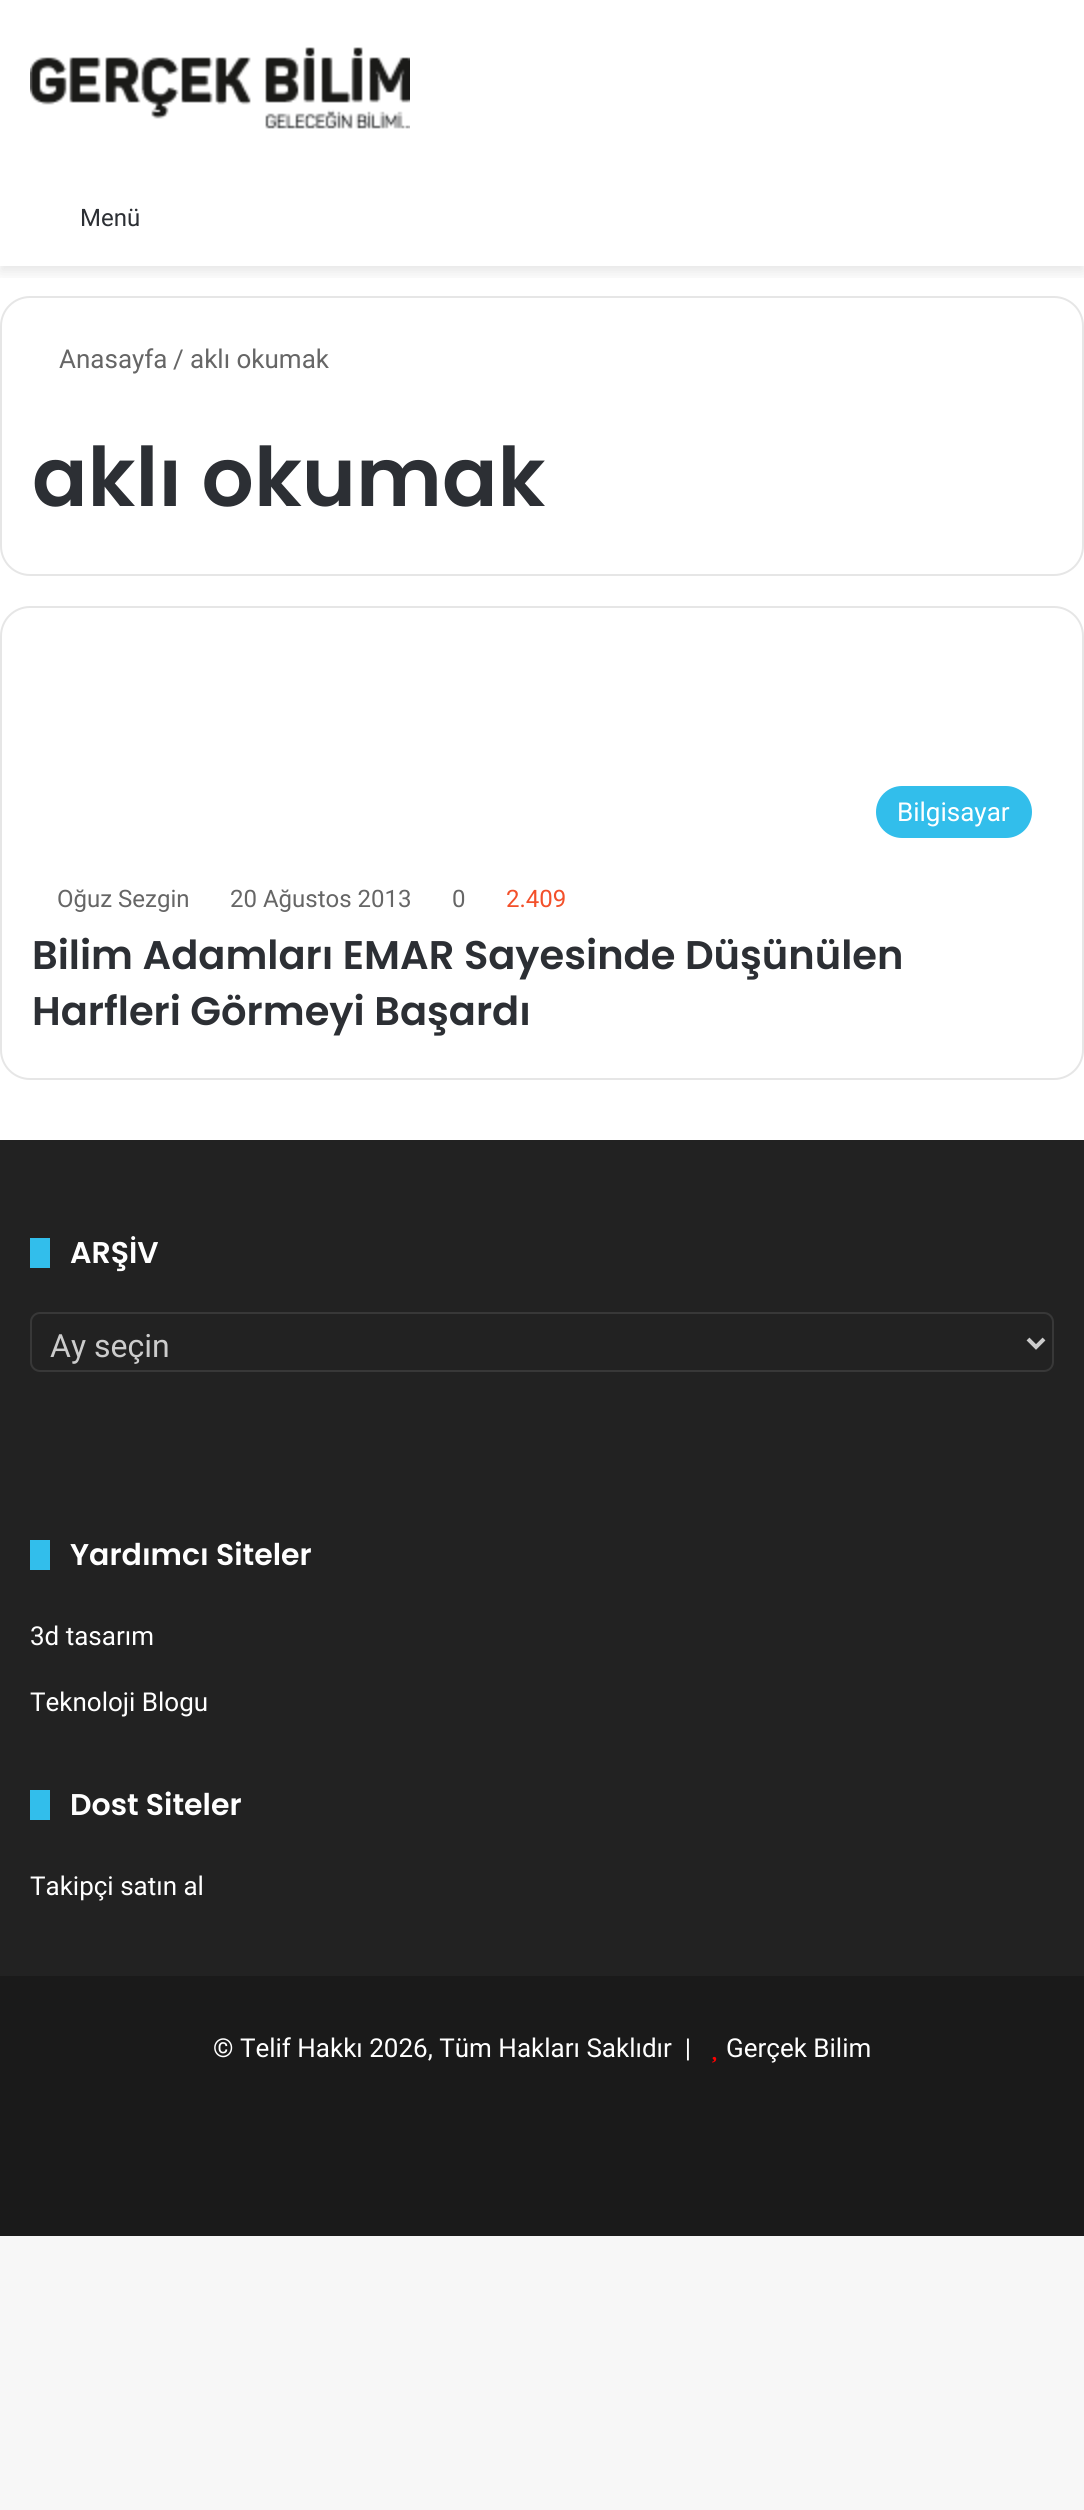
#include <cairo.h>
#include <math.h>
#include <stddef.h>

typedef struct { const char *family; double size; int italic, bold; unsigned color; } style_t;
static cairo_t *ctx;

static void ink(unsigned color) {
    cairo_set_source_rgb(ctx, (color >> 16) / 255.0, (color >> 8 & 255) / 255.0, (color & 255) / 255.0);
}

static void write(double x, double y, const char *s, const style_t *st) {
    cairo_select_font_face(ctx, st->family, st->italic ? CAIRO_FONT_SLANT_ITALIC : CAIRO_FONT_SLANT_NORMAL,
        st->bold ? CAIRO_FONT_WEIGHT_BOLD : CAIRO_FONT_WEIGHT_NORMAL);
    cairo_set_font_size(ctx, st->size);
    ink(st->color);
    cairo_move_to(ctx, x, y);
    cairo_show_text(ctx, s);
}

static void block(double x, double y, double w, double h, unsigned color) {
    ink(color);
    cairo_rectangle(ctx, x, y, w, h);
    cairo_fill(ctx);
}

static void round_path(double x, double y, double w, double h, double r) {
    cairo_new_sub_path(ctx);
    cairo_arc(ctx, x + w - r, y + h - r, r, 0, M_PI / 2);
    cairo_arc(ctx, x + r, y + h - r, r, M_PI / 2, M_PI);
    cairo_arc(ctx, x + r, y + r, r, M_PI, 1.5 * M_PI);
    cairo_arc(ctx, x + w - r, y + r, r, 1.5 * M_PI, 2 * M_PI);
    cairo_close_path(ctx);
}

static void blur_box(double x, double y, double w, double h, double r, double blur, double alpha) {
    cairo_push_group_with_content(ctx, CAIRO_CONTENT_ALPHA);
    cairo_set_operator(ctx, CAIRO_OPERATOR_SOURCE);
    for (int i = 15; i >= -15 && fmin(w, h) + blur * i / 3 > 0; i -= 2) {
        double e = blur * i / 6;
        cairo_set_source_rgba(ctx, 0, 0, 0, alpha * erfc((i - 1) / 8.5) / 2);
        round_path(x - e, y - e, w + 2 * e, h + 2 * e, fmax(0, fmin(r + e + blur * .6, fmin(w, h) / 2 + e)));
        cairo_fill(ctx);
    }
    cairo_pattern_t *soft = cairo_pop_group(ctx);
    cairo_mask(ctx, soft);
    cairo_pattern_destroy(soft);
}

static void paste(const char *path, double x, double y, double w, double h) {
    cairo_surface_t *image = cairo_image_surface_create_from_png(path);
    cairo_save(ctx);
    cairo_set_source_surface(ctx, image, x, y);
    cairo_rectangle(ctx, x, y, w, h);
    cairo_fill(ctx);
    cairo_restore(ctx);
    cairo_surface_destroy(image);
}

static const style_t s1 = {"Roboto", 24, 0, 0, 0x2c2f34};
static const style_t s2 = {"Roboto", 26, 0, 0, 0x666666};
static const style_t s3 = {"Poppins SemiBold", 82, 0, 0, 0x2c2f34};
static const style_t s4 = {"Roboto", 26, 0, 0, 0xffffff};
static const style_t s5 = {"Roboto", 24, 0, 0, 0x666666};
static const style_t s6 = {"Roboto", 24, 0, 0, 0xf3502a};
static const style_t s7 = {"Poppins SemiBold", 40, 0, 0, 0x2c2f34};
static const style_t s8 = {"Poppins SemiBold", 30, 0, 0, 0xffffff};
static const style_t s9 = {"Roboto", 32, 0, 0, 0xcccccc};

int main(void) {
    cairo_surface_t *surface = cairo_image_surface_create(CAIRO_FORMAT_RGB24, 1084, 2510);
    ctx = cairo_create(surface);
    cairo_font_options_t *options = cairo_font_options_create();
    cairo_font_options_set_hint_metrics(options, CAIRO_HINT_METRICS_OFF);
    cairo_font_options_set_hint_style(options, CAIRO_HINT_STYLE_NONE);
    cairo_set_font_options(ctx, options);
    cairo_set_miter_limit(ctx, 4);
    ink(0xf7f7f7);
    cairo_paint(ctx);
    block(0, 0, 1084, 1140, 0xffffff);
    cairo_save(ctx);
    cairo_rectangle(ctx, 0, 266, 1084, 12);
    cairo_clip(ctx);
    ink(0x000000);
    blur_box(0, 6, 1084, 266, 0, 7, 0.1);
    cairo_restore(ctx);
    paste("pic1.png", 30, 47, 380, 82);
    write(80, 226, "Menü", &s1);
    round_path(1, 297, 1082, 278, 29);
    ink(0xe6e6e6);
    cairo_stroke(ctx);
    write(59, 368, "Anasayfa", &s2);
    write(173, 368, "/", &s2);
    write(190, 368, "aklı okumak", &s2);
    write(32, 506, "aklı okumak", &s3);
    round_path(1, 607, 1082, 472, 29);
    ink(0xe6e6e6);
    cairo_stroke(ctx);
    ink(0x32beeb);
    round_path(876, 786, 156, 52, 26);
    cairo_fill(ctx);
    write(897, 821, "Bilgisayar", &s4);
    write(57, 907, "Oğuz Sezgin", &s5);
    write(230, 907, "20 Ağustos 2013", &s5);
    write(452, 907, "0", &s5);
    write(506, 907, "2.409", &s6);
    write(32, 969, "Bilim Adamları EMAR Sayesinde Düşünülen", &s7);
    write(32, 1025, "Harfleri Görmeyi Başardı", &s7);
    block(0, 1140, 1084, 836, 0x222222);
    block(30, 1238, 20, 30, 0x32beeb);
    write(70, 1263, "ARŞİV", &s8);
    round_path(31, 1313, 1022, 58, 9);
    ink(0x383838);
    cairo_stroke(ctx);
    cairo_new_path(ctx);
    cairo_move_to(ctx, 1028, 1339);
    cairo_line_to(ctx, 1036, 1347);
    cairo_line_to(ctx, 1044, 1339);
    ink(0xcccccc);
    cairo_set_line_width(ctx, 4);
    cairo_stroke(ctx);
    write(50, 1357, "Ay seçin", &s9);
    block(30, 1540, 20, 30, 0x32beeb);
    write(70, 1565, "Yardımcı Siteler", &s8);
    write(30, 1645, "3d tasarım", &s4);
    write(30, 1711, "Teknoloji Blogu", &s4);
    block(30, 1790, 20, 30, 0x32beeb);
    write(70, 1815, "Dost Siteler", &s8);
    write(30, 1895, "Takipçi satın al", &s4);
    block(0, 1976, 1084, 260, 0x1a1a1a);
    write(213, 2057, "© Telif Hakkı 2026, Tüm Hakları Saklıdır  |", &s4);
    paste("pic2.png", 712, 2056, 5, 7);
    write(726, 2057, "Gerçek Bilim", &s4);
    cairo_surface_write_to_png(surface, "screenshot.png");
    cairo_font_options_destroy(options);
    cairo_destroy(ctx);
    cairo_surface_destroy(surface);
    return 0;
}
